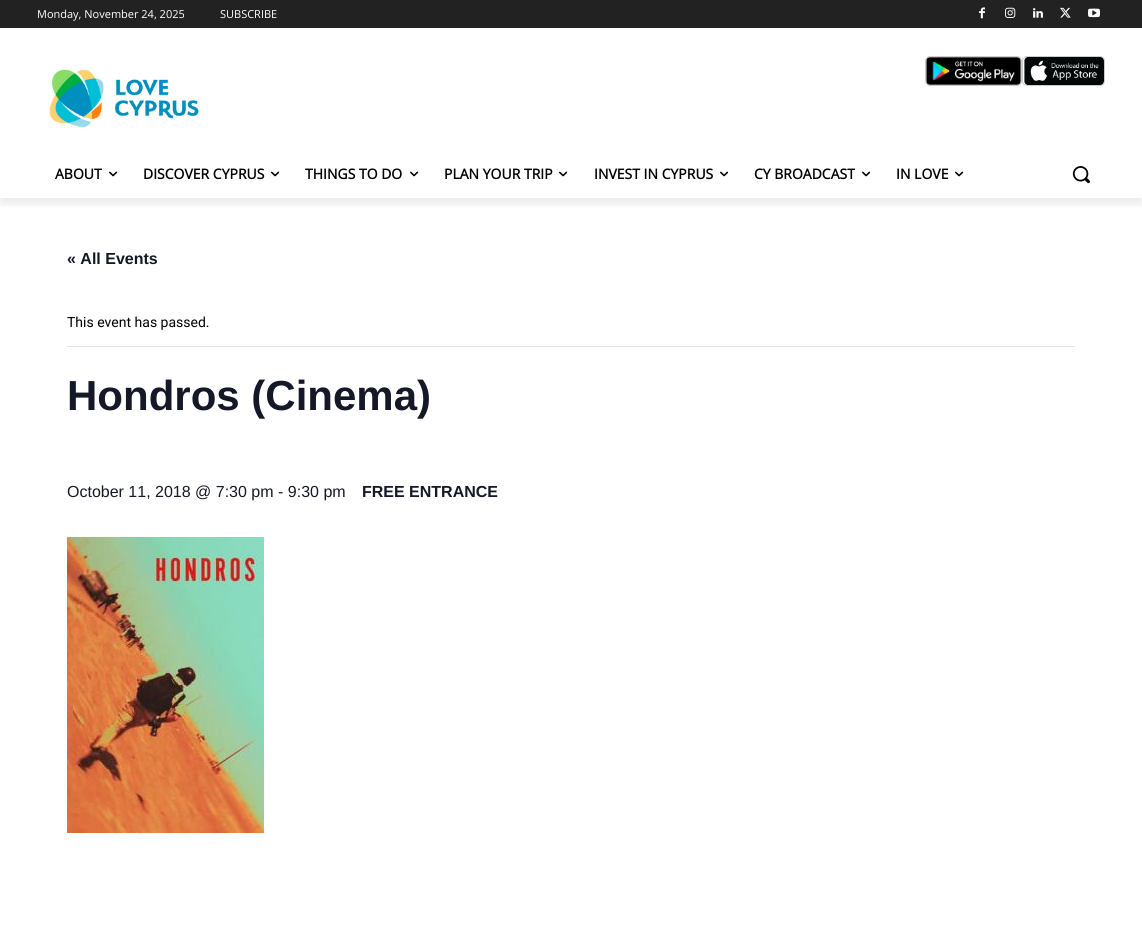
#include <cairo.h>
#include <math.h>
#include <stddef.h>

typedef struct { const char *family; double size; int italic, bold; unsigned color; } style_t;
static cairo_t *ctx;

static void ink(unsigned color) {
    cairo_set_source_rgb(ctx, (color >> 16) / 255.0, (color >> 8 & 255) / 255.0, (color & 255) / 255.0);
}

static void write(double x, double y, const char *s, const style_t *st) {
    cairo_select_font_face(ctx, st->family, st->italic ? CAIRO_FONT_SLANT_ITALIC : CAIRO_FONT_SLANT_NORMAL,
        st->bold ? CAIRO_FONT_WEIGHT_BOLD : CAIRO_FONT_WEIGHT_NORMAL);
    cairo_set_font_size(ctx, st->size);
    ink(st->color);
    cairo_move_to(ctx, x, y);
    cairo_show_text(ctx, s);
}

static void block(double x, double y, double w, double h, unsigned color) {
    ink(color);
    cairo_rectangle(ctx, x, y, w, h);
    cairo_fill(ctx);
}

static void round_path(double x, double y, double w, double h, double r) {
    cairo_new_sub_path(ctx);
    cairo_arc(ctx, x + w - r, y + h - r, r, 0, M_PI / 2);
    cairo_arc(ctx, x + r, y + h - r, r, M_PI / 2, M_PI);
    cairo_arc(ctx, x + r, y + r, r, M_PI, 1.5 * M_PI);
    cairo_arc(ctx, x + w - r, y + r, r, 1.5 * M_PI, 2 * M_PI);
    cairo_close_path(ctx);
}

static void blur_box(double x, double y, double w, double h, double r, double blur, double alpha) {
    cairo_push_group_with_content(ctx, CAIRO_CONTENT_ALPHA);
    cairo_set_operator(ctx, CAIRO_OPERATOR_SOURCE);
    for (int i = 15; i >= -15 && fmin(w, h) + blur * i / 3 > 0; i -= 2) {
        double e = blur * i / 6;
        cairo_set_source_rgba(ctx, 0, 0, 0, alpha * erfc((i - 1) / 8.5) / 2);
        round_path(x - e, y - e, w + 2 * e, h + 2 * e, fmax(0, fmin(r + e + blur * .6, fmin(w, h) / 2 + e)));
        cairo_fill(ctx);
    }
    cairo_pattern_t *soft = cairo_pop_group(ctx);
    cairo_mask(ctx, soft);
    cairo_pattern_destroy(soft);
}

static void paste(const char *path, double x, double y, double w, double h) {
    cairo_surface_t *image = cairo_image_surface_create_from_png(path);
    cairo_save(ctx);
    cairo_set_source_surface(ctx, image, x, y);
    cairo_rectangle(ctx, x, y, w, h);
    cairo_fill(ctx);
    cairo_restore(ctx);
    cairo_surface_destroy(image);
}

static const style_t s1 = {"Open Sans", 11, 0, 0, 0xffffff};
static const style_t s2 = {"Open Sans", 14, 0, 1, 0x000000};
static const style_t s3 = {"Liberation Sans", 16, 0, 1, 0x141827};
static const style_t s4 = {"Roboto", 14, 0, 0, 0x000000};
static const style_t s5 = {"Liberation Sans", 42, 0, 1, 0x141827};
static const style_t s6 = {"Liberation Sans", 16, 0, 0, 0x141827};

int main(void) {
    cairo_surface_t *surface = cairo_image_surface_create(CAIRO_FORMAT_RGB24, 1142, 936);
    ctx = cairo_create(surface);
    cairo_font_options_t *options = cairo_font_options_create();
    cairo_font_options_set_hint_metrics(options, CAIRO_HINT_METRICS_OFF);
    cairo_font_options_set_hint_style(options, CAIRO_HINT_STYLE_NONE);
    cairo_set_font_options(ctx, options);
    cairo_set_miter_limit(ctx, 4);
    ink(0xffffff);
    cairo_paint(ctx);
    block(0, 0, 1142, 28, 0x222222);
    paste("pic1.png", 979, 7, 6, 12);
    paste("pic2.png", 1005, 7, 11, 11);
    paste("pic3.png", 1033, 8, 10, 10);
    paste("pic4.png", 1060, 7, 11, 11);
    paste("pic5.png", 1088, 8, 12, 10);
    paste("pic6.png", 49, 69, 150, 59);
    round_path(925.5, 56.5, 96, 29, 4.5);
    ink(0xcccccc);
    cairo_set_line_width(ctx, 1);
    cairo_stroke(ctx);
    paste("pic7.png", 926, 57, 95, 28);
    round_path(1022.5, 56.5, 82, 29, 4.5);
    cairo_stroke(ctx);
    paste("pic8.png", 1024, 57, 80, 28);
    cairo_save(ctx);
    cairo_rectangle(ctx, 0, 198, 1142, 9);
    cairo_clip(ctx);
    ink(0x000000);
    blur_box(0, 6, 1142, 198, 0, 4, 0.08);
    cairo_restore(ctx);
    write(37, 18, "Monday, November 24, 2025", &s1);
    write(220, 18, "SUBSCRIBE", &s1);
    write(55, 179, "ABOUT", &s2);
    paste("pic9.png", 109, 171, 9, 6);
    write(143, 179, "DISCOVER CYPRUS", &s2);
    paste("pic9.png", 271, 171, 9, 6);
    write(305, 179, "THINGS TO DO", &s2);
    paste("pic9.png", 410, 171, 9, 6);
    write(444, 179, "PLAN YOUR TRIP", &s2);
    paste("pic9.png", 559, 171, 9, 6);
    write(594, 179, "INVEST IN CYPRUS", &s2);
    paste("pic9.png", 720, 171, 9, 6);
    write(754, 179, "CY BROADCAST", &s2);
    paste("pic9.png", 862, 171, 9, 6);
    write(896, 179, "IN LOVE", &s2);
    paste("pic9.png", 955, 171, 9, 6);
    paste("pic10.png", 1072, 166, 18, 18);
    write(67, 264, "« All Events", &s3);
    block(67, 346, 1008, 1, 0xe4e4e4);
    write(67, 327, "This event has passed.", &s4);
    write(67, 410, "Hondros (Cinema)", &s5);
    write(67, 497, "October 11, 2018 @ 7:30 pm - 9:30 pm", &s6);
    write(362, 497, "FREE ENTRANCE", &s3);
    paste("pic11.png", 67, 537, 197, 296);
    cairo_surface_write_to_png(surface, "screenshot.png");
    cairo_font_options_destroy(options);
    cairo_destroy(ctx);
    cairo_surface_destroy(surface);
    return 0;
}
